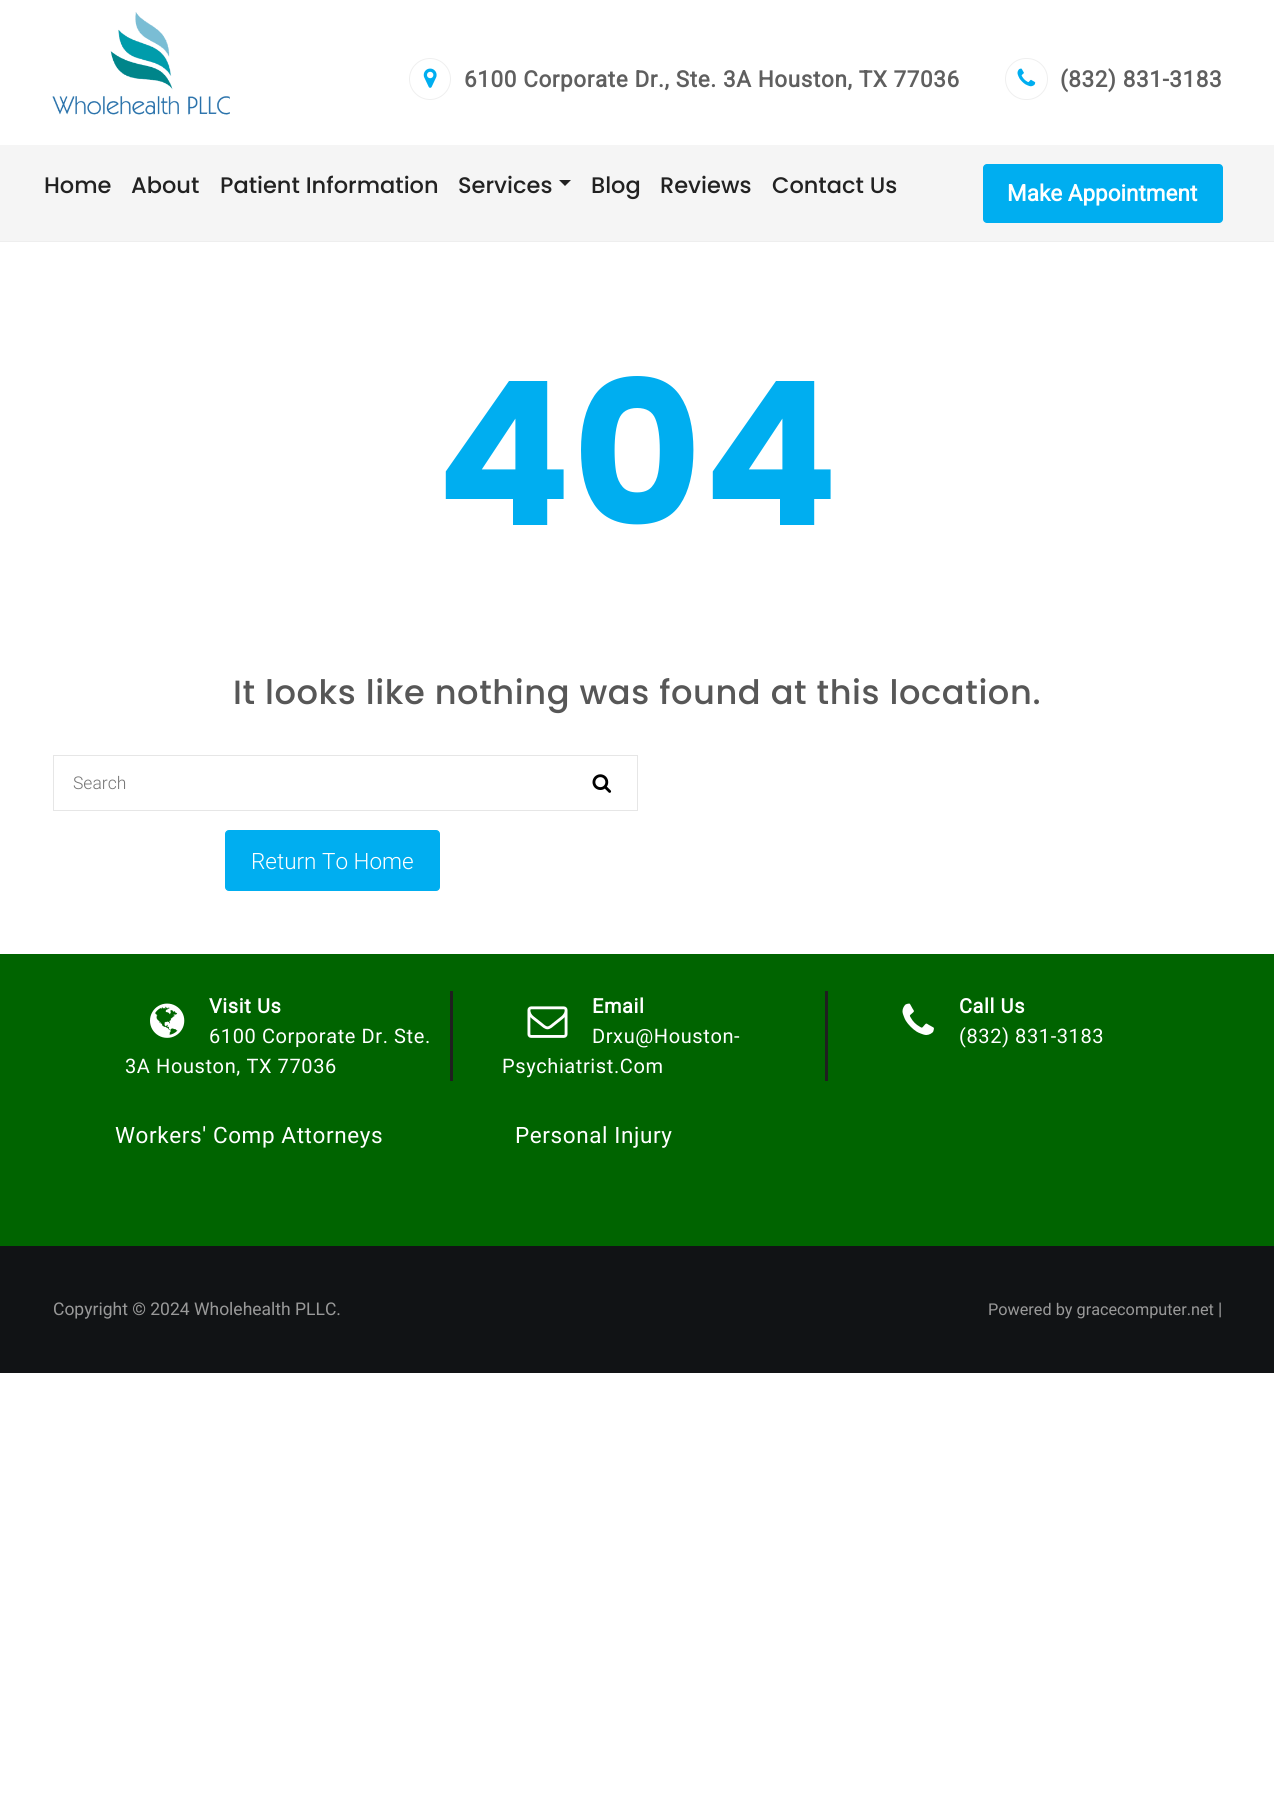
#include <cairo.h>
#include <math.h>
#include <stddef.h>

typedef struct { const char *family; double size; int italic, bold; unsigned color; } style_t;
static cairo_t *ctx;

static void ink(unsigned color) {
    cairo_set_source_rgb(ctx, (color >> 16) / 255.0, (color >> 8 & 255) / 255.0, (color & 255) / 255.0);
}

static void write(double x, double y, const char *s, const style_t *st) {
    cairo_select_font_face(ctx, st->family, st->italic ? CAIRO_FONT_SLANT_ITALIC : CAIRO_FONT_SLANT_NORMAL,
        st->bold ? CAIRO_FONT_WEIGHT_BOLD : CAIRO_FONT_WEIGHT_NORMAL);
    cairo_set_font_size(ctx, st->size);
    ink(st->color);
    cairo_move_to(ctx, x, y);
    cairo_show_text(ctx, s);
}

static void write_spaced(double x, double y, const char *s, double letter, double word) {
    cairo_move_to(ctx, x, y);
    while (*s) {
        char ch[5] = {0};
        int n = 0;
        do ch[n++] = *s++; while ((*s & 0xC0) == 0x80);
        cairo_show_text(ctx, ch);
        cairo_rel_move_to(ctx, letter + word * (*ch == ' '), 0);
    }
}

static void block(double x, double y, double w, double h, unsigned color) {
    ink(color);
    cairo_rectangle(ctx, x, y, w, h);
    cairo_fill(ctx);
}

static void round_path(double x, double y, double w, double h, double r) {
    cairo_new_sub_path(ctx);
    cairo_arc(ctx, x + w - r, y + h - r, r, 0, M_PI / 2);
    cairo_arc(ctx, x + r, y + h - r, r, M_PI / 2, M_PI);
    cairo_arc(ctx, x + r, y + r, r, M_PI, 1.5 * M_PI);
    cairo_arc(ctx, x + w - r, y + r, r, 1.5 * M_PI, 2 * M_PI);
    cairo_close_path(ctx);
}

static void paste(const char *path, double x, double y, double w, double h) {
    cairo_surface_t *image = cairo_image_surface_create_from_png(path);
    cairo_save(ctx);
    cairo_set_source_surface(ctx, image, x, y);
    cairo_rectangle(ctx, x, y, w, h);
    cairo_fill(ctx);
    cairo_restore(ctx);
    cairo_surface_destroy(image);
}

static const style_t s1 = {"Poppins Medium", 22.5, 0, 0, 0x222222};
static const style_t s2 = {"Roboto", 22.5, 0, 1, 0xffffff};
static const style_t s3 = {"Roboto Light", 17.5, 0, 0, 0x757575};
static const style_t s4 = {"Roboto Light", 22.5, 0, 0, 0xffffff};
static const style_t s5 = {"Roboto", 17.5, 0, 0, 0x999999};
static const style_t s6 = {"Roboto", 16.25, 0, 0, 0x999999};

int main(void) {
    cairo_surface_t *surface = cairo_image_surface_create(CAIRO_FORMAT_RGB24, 1274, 1810);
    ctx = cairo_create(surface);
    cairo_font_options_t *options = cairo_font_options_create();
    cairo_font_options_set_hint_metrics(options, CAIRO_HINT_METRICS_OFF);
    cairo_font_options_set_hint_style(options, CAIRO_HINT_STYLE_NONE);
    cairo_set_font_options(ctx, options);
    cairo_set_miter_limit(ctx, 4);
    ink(0xffffff);
    cairo_paint(ctx);
    block(0, 241, 1274, 1, 0xeeeeee);
    paste("pic1.png", 52, 12, 178, 103);
    cairo_arc(ctx, 430, 79, 20.5, 0, 2 * M_PI);
    ink(0xefefef);
    cairo_set_line_width(ctx, 1);
    cairo_stroke(ctx);
    paste("pic2.png", 423, 68, 14, 20);
    cairo_select_font_face(ctx, "Roboto", CAIRO_FONT_SLANT_NORMAL, CAIRO_FONT_WEIGHT_BOLD);
    cairo_set_font_size(ctx, 22.5);
    ink(0x5f5f5f);
    write_spaced(464, 87, "6100 Corporate Dr., Ste. 3A Houston, TX 77036", 0.6, 0);
    round_path(1005.5, 58.5, 42, 41, 20.5);
    ink(0xefefef);
    cairo_stroke(ctx);
    paste("pic3.png", 1017, 68, 19, 19);
    ink(0x5f5f5f);
    write_spaced(1060, 87, "(832) 831-3183", 0.6, 0);
    block(0, 145, 1274, 96, 0xf5f5f5);
    write(44, 193, "Home", &s1);
    write(131, 193, "About", &s1);
    write(220, 193, "Patient Information", &s1);
    write(458, 193, "Services", &s1);
    cairo_new_path(ctx);
    cairo_move_to(ctx, 559, 180);
    cairo_line_to(ctx, 571, 180);
    cairo_line_to(ctx, 565, 186);
    cairo_close_path(ctx);
    cairo_fill(ctx);
    write(591, 193, "Blog", &s1);
    write(660, 193, "Reviews", &s1);
    write(772, 193, "Contact Us", &s1);
    ink(0x00aef0);
    round_path(983, 164, 240, 59, 4);
    cairo_fill(ctx);
    write(1007, 201, "Make Appointment", &s2);
    cairo_select_font_face(ctx, "Poppins", CAIRO_FONT_SLANT_NORMAL, CAIRO_FONT_WEIGHT_BOLD);
    cairo_set_font_size(ctx, 200);
    ink(0x00aef0);
    write_spaced(436, 525, "404", 0.6, 0);
    cairo_select_font_face(ctx, "Poppins Medium", CAIRO_FONT_SLANT_NORMAL, CAIRO_FONT_WEIGHT_NORMAL);
    cairo_set_font_size(ctx, 33.65);
    ink(0x575757);
    write_spaced(233, 704, "It looks like nothing was found at this location.", 0.6, 0);
    cairo_rectangle(ctx, 53.5, 755.5, 584, 55);
    ink(0xe6e6e6);
    cairo_stroke(ctx);
    write(73, 789, "Search", &s3);
    paste("pic4.png", 592, 774, 20, 19);
    ink(0x00aef0);
    round_path(225.5, 830.5, 214, 60, 3.5);
    cairo_fill_preserve(ctx);
    cairo_stroke(ctx);
    write(251, 869, "Return To Home", &s4);
    block(0, 954, 1274, 292, 0x006400);
    cairo_select_font_face(ctx, "Roboto", CAIRO_FONT_SLANT_NORMAL, CAIRO_FONT_WEIGHT_BOLD);
    cairo_set_font_size(ctx, 20);
    ink(0xffffff);
    write_spaced(209, 1013, "Visit Us", 0.6, 0);
    cairo_select_font_face(ctx, "Roboto", CAIRO_FONT_SLANT_NORMAL, CAIRO_FONT_WEIGHT_NORMAL);
    write_spaced(209, 1043, "6100 Corporate Dr. Ste.", 0.6, 0);
    write_spaced(125, 1073, "3A Houston, TX 77036", 0.6, 0);
    paste("pic5.png", 150, 1003, 35, 35);
    block(450, 991, 3, 90, 0x1f1f1f);
    cairo_select_font_face(ctx, "Roboto", CAIRO_FONT_SLANT_NORMAL, CAIRO_FONT_WEIGHT_BOLD);
    ink(0xffffff);
    write_spaced(592, 1013, "Email", 0.6, 0);
    cairo_select_font_face(ctx, "Roboto", CAIRO_FONT_SLANT_NORMAL, CAIRO_FONT_WEIGHT_NORMAL);
    write_spaced(592, 1043, "Drxu@Houston-", 0.6, 0);
    write_spaced(502, 1073, "Psychiatrist.Com", 0.6, 0);
    paste("pic6.png", 527, 1006, 41, 32);
    block(825, 991, 3, 90, 0x1f1f1f);
    paste("pic7.png", 902, 1003, 32, 32);
    cairo_select_font_face(ctx, "Roboto", CAIRO_FONT_SLANT_NORMAL, CAIRO_FONT_WEIGHT_BOLD);
    ink(0xffffff);
    write_spaced(959, 1013, "Call Us", 0.6, 0);
    cairo_select_font_face(ctx, "Roboto", CAIRO_FONT_SLANT_NORMAL, CAIRO_FONT_WEIGHT_NORMAL);
    write_spaced(959, 1043, "(832) 831-3183", 0.6, 0);
    cairo_set_font_size(ctx, 22.5);
    write_spaced(115, 1143, "Workers' Comp Attorneys", 0.6, 0);
    write_spaced(515, 1143, "Personal Injury", 0.6, 0);
    block(0, 1246, 1274, 127, 0x111315);
    write(53, 1315, "Copyright © 2024 Wholehealth PLLC.", &s5);
    write(988, 1315, "Powered by gracecomputer.net", &s6);
    write(1218, 1315, "|", &s5);
    cairo_surface_write_to_png(surface, "screenshot.png");
    cairo_font_options_destroy(options);
    cairo_destroy(ctx);
    cairo_surface_destroy(surface);
    return 0;
}
